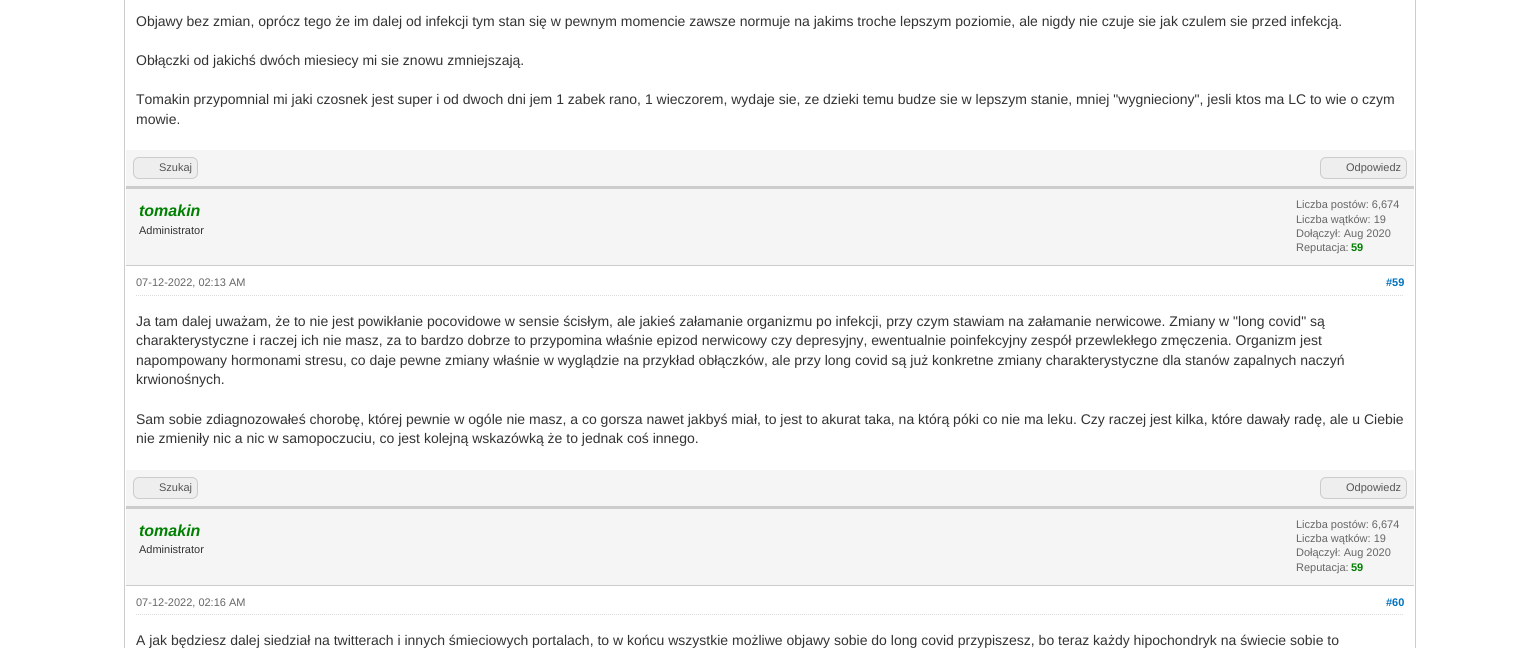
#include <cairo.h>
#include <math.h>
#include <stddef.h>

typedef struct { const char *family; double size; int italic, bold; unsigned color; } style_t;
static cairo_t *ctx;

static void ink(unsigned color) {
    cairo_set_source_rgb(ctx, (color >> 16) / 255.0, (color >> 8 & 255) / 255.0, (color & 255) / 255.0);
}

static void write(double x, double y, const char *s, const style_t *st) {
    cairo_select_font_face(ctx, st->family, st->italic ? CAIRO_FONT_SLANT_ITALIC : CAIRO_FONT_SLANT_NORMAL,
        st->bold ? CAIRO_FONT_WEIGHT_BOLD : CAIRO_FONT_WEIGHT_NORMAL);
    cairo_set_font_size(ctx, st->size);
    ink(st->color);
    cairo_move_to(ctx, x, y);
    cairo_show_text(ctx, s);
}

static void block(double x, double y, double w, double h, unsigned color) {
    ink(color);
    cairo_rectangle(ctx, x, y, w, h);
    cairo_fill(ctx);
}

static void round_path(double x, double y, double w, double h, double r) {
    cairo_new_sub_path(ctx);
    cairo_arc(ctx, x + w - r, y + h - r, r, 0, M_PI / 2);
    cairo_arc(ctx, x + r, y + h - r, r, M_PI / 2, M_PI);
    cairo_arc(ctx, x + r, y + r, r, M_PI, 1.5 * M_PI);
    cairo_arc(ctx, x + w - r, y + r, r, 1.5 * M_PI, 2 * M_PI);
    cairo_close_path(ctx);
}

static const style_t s1 = {"Liberation Sans", 14, 0, 0, 0x333333};
static const style_t s2 = {"Liberation Sans", 11, 0, 0, 0x555555};
static const style_t s3 = {"Liberation Sans", 16, 1, 1, 0x008000};
static const style_t s4 = {"Liberation Sans", 11, 0, 0, 0x333333};
static const style_t s5 = {"Liberation Sans", 11, 0, 0, 0x666666};
static const style_t s6 = {"Liberation Sans", 11, 0, 1, 0x008000};
static const style_t s7 = {"Liberation Sans", 11, 0, 1, 0x0072bc};

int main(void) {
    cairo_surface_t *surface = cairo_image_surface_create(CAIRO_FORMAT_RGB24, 1540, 648);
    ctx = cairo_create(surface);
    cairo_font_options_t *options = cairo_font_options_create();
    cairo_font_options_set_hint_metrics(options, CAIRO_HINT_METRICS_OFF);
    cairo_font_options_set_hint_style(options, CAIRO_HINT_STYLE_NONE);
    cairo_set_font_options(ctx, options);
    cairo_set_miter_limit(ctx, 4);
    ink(0xffffff);
    cairo_paint(ctx);
    cairo_rectangle(ctx, 124.5, -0.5, 1291, 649);
    ink(0xcccccc);
    cairo_set_line_width(ctx, 1);
    cairo_stroke(ctx);
    write(136, 26, "Objawy bez zmian, oprócz tego że im dalej od infekcji tym stan się w pewnym momencie zawsze normuje na jakims troche lepszym poziomie, ale nigdy nie czuje sie jak czulem sie przed infekcją.", &s1);
    write(136, 65, "Obłączki od jakichś dwóch miesiecy mi sie znowu zmniejszają.", &s1);
    write(136, 104, "Tomakin przypomnial mi jaki czosnek jest super i od dwoch dni jem 1 zabek rano, 1 wieczorem, wydaje sie, ze dzieki temu budze sie w lepszym stanie, mniej \"wygnieciony\", jesli ktos ma LC to wie o czym", &s1);
    write(136, 124, "mowie.", &s1);
    block(126, 150, 1288, 36, 0xf5f5f5);
    block(126, 186, 1288, 3, 0xcccccc);
    ink(0xeeeeee);
    round_path(133.5, 157.5, 64, 21, 5.5);
    cairo_fill_preserve(ctx);
    ink(0xcccccc);
    cairo_stroke(ctx);
    write(159, 171, "Szukaj", &s2);
    ink(0xeeeeee);
    round_path(1320.5, 157.5, 86, 21, 5.5);
    cairo_fill_preserve(ctx);
    ink(0xcccccc);
    cairo_stroke(ctx);
    write(1346, 171, "Odpowiedz", &s2);
    block(126, 189, 1288, 76, 0xf5f5f5);
    block(126, 265, 1288, 1, 0xcccccc);
    write(139, 216, "tomakin", &s3);
    write(139, 234, "Administrator", &s4);
    write(1296, 208, "Liczba postów: 6,674", &s5);
    write(1296, 223, "Liczba wątków: 19", &s5);
    write(1296, 237, "Dołączył: Aug 2020", &s5);
    write(1296, 251, "Reputacja:", &s5);
    write(1351, 251, "59", &s6);
    cairo_new_path(ctx);
    cairo_move_to(ctx, 136, 295.5);
    cairo_line_to(ctx, 1404, 295.5);
    ink(0xdddddd);
    cairo_set_dash(ctx, (double[]){1, 1}, 2, 0);
    cairo_stroke(ctx);
    write(136, 286, "07-12-2022, 02:13 AM", &s5);
    write(1386, 286, "#59", &s7);
    write(136, 326, "Ja tam dalej uważam, że to nie jest powikłanie pocovidowe w sensie ścisłym, ale jakieś załamanie organizmu po infekcji, przy czym stawiam na załamanie nerwicowe. Zmiany w \"long covid\" są", &s1);
    write(136, 345, "charakterystyczne i raczej ich nie masz, za to bardzo dobrze to przypomina właśnie epizod nerwicowy czy depresyjny, ewentualnie poinfekcyjny zespół przewlekłego zmęczenia. Organizm jest", &s1);
    write(136, 365, "napompowany hormonami stresu, co daje pewne zmiany właśnie w wyglądzie na przykład obłączków, ale przy long covid są już konkretne zmiany charakterystyczne dla stanów zapalnych naczyń", &s1);
    write(136, 384, "krwionośnych.", &s1);
    write(136, 424, "Sam sobie zdiagnozowałeś chorobę, której pewnie w ogóle nie masz, a co gorsza nawet jakbyś miał, to jest to akurat taka, na którą póki co nie ma leku. Czy raczej jest kilka, które dawały radę, ale u Ciebie", &s1);
    write(136, 443, "nie zmieniły nic a nic w samopoczuciu, co jest kolejną wskazówką że to jednak coś innego.", &s1);
    block(126, 470, 1288, 36, 0xf5f5f5);
    block(126, 506, 1288, 3, 0xcccccc);
    ink(0xeeeeee);
    round_path(133.5, 477.5, 64, 21, 5.5);
    cairo_fill_preserve(ctx);
    ink(0xcccccc);
    cairo_set_dash(ctx, NULL, 0, 0);
    cairo_stroke(ctx);
    write(159, 491, "Szukaj", &s2);
    ink(0xeeeeee);
    round_path(1320.5, 477.5, 86, 21, 5.5);
    cairo_fill_preserve(ctx);
    ink(0xcccccc);
    cairo_stroke(ctx);
    write(1346, 491, "Odpowiedz", &s2);
    block(126, 509, 1288, 76, 0xf5f5f5);
    block(126, 585, 1288, 1, 0xcccccc);
    write(139, 536, "tomakin", &s3);
    write(139, 553, "Administrator", &s4);
    write(1296, 528, "Liczba postów: 6,674", &s5);
    write(1296, 542, "Liczba wątków: 19", &s5);
    write(1296, 556, "Dołączył: Aug 2020", &s5);
    write(1296, 571, "Reputacja:", &s5);
    write(1351, 571, "59", &s6);
    cairo_new_path(ctx);
    cairo_move_to(ctx, 136, 614.5);
    cairo_line_to(ctx, 1404, 614.5);
    ink(0xdddddd);
    cairo_set_dash(ctx, (double[]){1, 1}, 2, 0);
    cairo_stroke(ctx);
    write(136, 606, "07-12-2022, 02:16 AM", &s5);
    write(1386, 606, "#60", &s7);
    write(136, 645, "A jak będziesz dalej siedział na twitterach i innych śmieciowych portalach, to w końcu wszystkie możliwe objawy sobie do long covid przypiszesz, bo teraz każdy hipochondryk na świecie sobie to", &s1);
    cairo_surface_write_to_png(surface, "screenshot.png");
    cairo_font_options_destroy(options);
    cairo_destroy(ctx);
    cairo_surface_destroy(surface);
    return 0;
}
